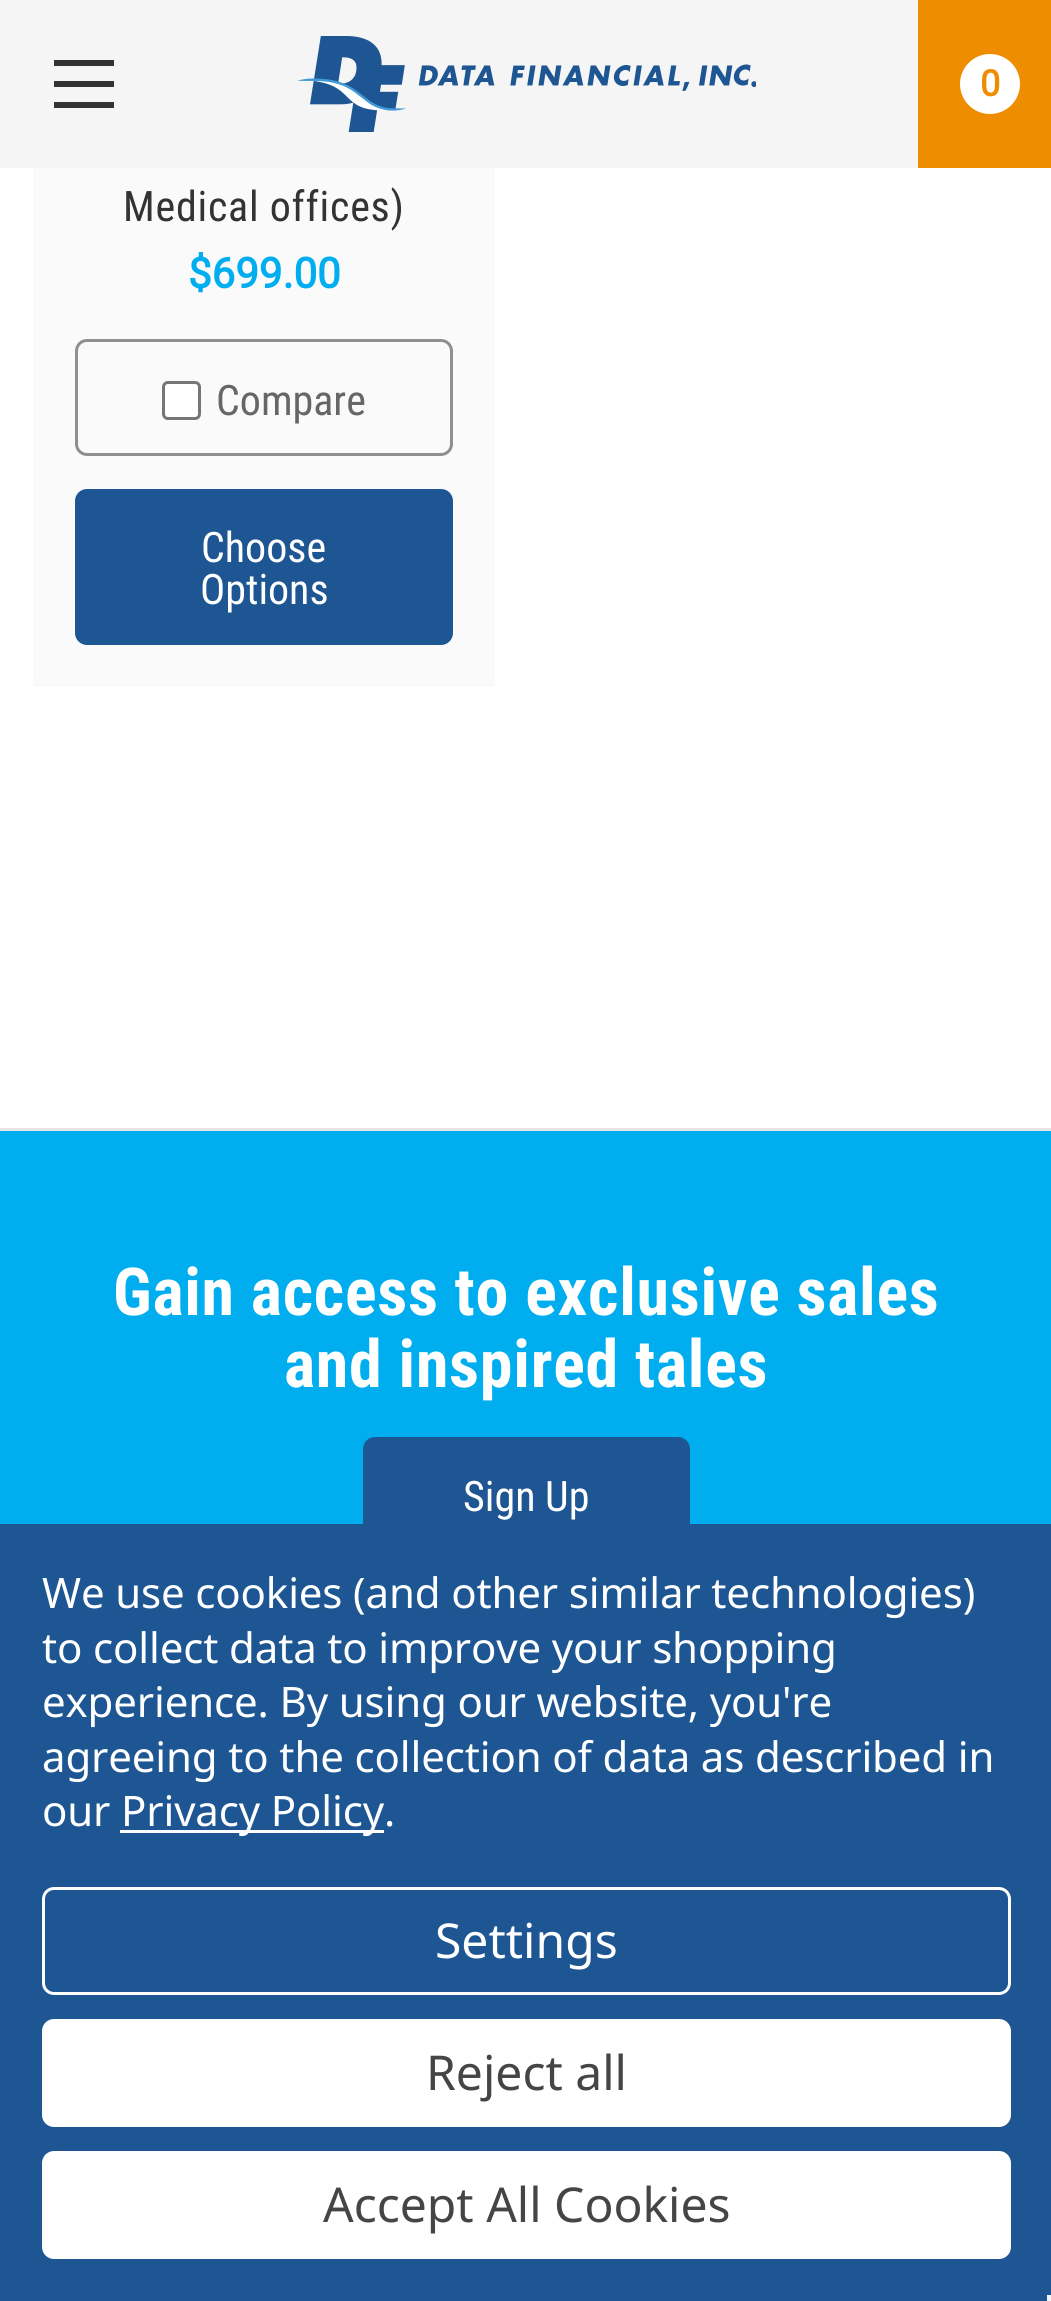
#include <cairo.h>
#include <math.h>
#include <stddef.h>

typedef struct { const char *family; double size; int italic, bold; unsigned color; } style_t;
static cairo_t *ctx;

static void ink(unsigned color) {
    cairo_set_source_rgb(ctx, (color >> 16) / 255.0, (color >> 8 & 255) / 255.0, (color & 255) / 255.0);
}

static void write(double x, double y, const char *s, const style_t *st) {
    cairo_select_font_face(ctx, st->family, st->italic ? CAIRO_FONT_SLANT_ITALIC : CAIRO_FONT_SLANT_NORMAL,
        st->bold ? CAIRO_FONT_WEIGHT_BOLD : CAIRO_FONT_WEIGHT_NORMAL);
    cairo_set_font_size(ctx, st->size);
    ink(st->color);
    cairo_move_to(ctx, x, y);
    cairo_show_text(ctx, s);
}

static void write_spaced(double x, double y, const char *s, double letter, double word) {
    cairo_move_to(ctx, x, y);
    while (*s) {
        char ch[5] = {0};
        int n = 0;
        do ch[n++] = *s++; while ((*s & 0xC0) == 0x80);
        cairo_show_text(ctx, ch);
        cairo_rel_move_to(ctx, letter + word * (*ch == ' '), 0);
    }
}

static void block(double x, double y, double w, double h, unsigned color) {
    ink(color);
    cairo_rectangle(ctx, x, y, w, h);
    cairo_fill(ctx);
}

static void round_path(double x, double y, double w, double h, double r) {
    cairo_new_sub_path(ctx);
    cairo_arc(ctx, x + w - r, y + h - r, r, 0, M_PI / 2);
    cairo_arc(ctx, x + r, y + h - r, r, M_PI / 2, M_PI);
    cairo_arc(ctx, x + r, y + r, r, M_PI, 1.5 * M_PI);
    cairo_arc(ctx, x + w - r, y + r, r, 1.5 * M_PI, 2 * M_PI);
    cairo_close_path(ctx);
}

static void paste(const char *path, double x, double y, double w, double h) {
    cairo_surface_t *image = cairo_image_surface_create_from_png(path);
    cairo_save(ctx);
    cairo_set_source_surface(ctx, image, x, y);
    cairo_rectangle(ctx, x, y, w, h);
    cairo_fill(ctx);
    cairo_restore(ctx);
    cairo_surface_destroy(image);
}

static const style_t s1 = {"Roboto", 36, 0, 1, 0xef8d00};
static const style_t s2 = {"Roboto", 42, 0, 1, 0x00aeef};
static const style_t s3 = {"Roboto Condensed", 42, 0, 0, 0x666666};
static const style_t s4 = {"Roboto Condensed", 42, 0, 0, 0xffffff};
static const style_t s5 = {"Noto Sans", 48, 0, 0, 0xffffff};
static const style_t s6 = {"Noto Sans", 48, 0, 0, 0x454545};

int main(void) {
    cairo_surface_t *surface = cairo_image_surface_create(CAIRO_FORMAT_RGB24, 1051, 2301);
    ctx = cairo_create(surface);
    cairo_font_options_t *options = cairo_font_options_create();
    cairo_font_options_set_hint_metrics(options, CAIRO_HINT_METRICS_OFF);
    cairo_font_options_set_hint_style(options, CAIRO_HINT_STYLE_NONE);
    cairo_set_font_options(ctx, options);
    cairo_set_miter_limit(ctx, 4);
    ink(0xffffff);
    cairo_paint(ctx);
    cairo_rectangle(ctx, 37.5, -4.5, 453, 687);
    ink(0xfafafa);
    cairo_set_line_width(ctx, 9);
    cairo_stroke(ctx);
    block(0, 0, 918, 168, 0xf5f5f5);
    paste("pic1.png", 297, 36, 459, 96);
    block(54, 81, 60, 6, 0x333333);
    block(54, 60, 60, 6, 0x333333);
    block(54, 102, 60, 6, 0x333333);
    block(918, 0, 133, 168, 0xef8d00);
    ink(0xffffff);
    cairo_arc(ctx, 990, 84, 30, 0, 2 * M_PI);
    cairo_fill(ctx);
    write(980, 96, "0", &s1);
    block(42, 168, 444, 510, 0xfafafa);
    cairo_select_font_face(ctx, "Roboto Condensed", CAIRO_FONT_SLANT_NORMAL, CAIRO_FONT_WEIGHT_NORMAL);
    cairo_set_font_size(ctx, 42);
    ink(0x333333);
    write_spaced(123, 221, "Medical offices)", 0.75, 0);
    write(188, 288, "$699.00", &s2);
    round_path(76.5, 340.5, 375, 114, 10.5);
    ink(0x8f8f8f);
    cairo_set_line_width(ctx, 3);
    cairo_stroke(ctx);
    ink(0xffffff);
    round_path(163.5, 382.5, 36, 36, 4.5);
    cairo_fill_preserve(ctx);
    ink(0x767676);
    cairo_stroke(ctx);
    write(216, 415, "Compare", &s3);
    ink(0x1d5693);
    round_path(75, 489, 378, 156, 12);
    cairo_fill(ctx);
    write(201, 562, "Choose", &s4);
    write(200, 604, "Options", &s4);
    block(0, 1131, 1051, 393, 0x00aeef);
    block(0, 1128, 1051, 3, 0xe5e5e5);
    cairo_select_font_face(ctx, "Roboto Condensed", CAIRO_FONT_SLANT_NORMAL, CAIRO_FONT_WEIGHT_BOLD);
    cairo_set_font_size(ctx, 66);
    ink(0xffffff);
    write_spaced(113, 1315, "Gain access to exclusive sales", 0.75, 0);
    write_spaced(284, 1387, "and inspired tales", 0.75, 0);
    ink(0x1d5693);
    round_path(364.5, 1438.5, 324, 117, 10.5);
    cairo_fill_preserve(ctx);
    cairo_stroke(ctx);
    write(463, 1511, "Sign Up", &s4);
    block(0, 1524, 1051, 777, 0x1d5693);
    cairo_select_font_face(ctx, "Noto Sans", CAIRO_FONT_SLANT_NORMAL, CAIRO_FONT_WEIGHT_NORMAL);
    ink(0xffffff);
    write_spaced(42, 1608, "We use cookies (and other similar technologies)", -0.15, 0);
    write_spaced(42, 1663, "to collect data to improve your shopping", -0.15, 0);
    write_spaced(42, 1717, "experience. By using our website, you're", -0.15, 0);
    write_spaced(42, 1772, "agreeing to the collection of data as described in", -0.15, 0);
    write_spaced(42, 1826, "our", -0.15, 0);
    block(120, 1830, 264, 3, 0xffffff);
    write_spaced(121, 1826, "Privacy Policy.", -0.15, 0);
    round_path(43.5, 1888.5, 966, 105, 10.5);
    cairo_stroke(ctx);
    write(435, 1958, "Settings", &s5);
    round_path(42, 2019, 969, 108, 12);
    cairo_fill(ctx);
    write(426, 2090, "Reject all", &s6);
    ink(0xffffff);
    round_path(42, 2151, 969, 108, 12);
    cairo_fill(ctx);
    write(323, 2222, "Accept All Cookies", &s6);
    block(1047, 2295, 4, 6, 0xf5f5f5);
    cairo_surface_write_to_png(surface, "screenshot.png");
    cairo_font_options_destroy(options);
    cairo_destroy(ctx);
    cairo_surface_destroy(surface);
    return 0;
}
